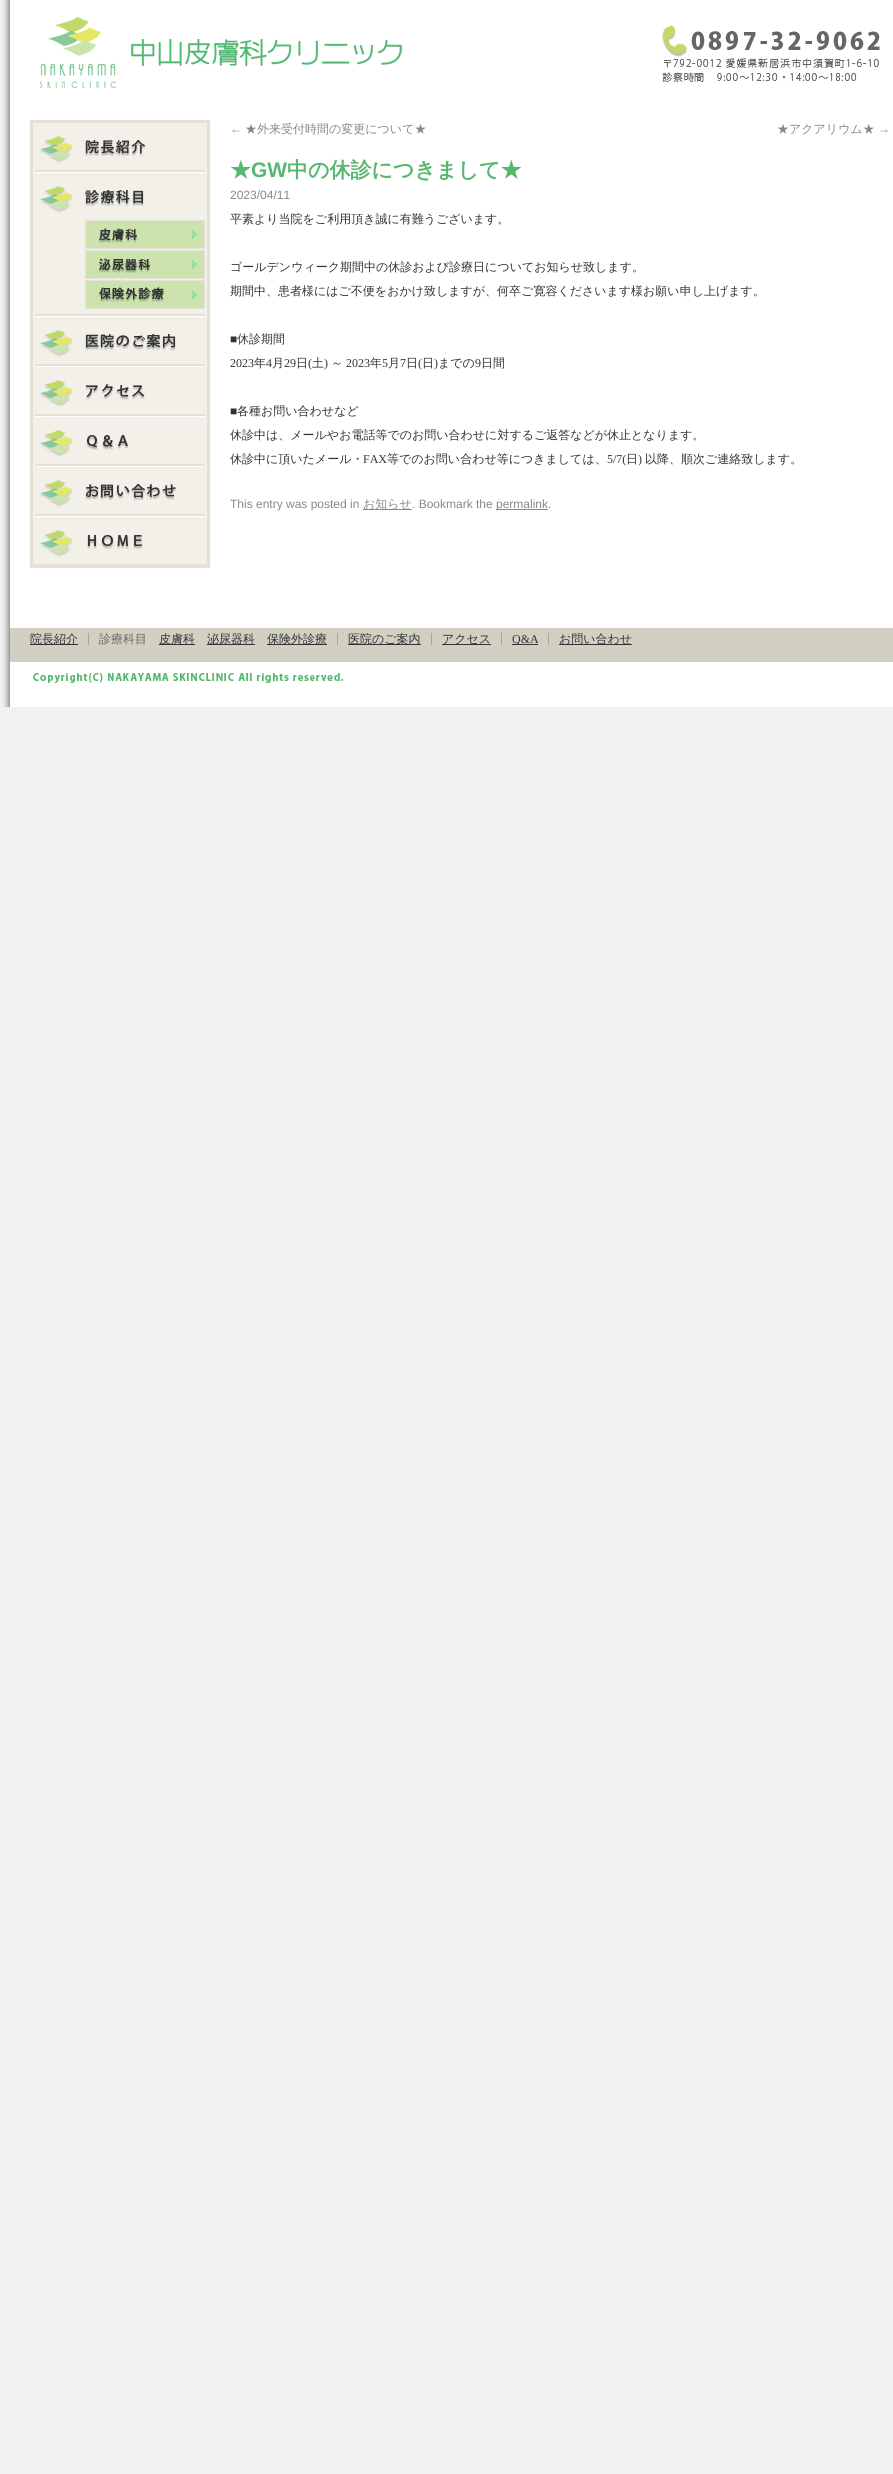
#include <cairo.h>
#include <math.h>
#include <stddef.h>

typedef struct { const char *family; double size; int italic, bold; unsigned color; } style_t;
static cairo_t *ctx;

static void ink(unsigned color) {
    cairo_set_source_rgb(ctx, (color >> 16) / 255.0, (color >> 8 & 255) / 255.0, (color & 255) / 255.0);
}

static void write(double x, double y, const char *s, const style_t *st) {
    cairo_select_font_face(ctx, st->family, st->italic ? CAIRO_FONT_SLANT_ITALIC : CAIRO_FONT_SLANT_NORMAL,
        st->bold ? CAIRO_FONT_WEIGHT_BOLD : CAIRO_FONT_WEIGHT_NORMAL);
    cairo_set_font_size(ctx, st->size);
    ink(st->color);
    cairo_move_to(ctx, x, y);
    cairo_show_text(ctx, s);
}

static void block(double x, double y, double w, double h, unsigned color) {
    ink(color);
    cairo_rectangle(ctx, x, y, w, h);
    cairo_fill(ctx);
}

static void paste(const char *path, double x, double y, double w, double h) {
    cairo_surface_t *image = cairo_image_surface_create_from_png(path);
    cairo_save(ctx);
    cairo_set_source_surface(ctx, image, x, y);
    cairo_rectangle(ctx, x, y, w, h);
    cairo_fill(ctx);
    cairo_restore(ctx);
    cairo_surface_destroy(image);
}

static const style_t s1 = {"Liberation Sans", 12, 0, 0, 0x888888};
static const style_t s2 = {"WenQuanYi Zen Hei Medium", 12, 0, 0, 0x888888};
static const style_t s3 = {"WenQuanYi Zen Hei", 21, 0, 1, 0x57b76f};
static const style_t s4 = {"Liberation Sans", 21, 0, 1, 0x57b76f};
static const style_t s5 = {"WenQuanYi Zen Hei Medium", 12, 0, 0, 0x333333};
static const style_t s6 = {"Liberation Serif", 12, 0, 0, 0x333333};
static const style_t s7 = {"WenQuanYi Zen Hei Medium", 12, 0, 0, 0x666666};

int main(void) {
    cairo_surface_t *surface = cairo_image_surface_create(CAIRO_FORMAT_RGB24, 893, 2474);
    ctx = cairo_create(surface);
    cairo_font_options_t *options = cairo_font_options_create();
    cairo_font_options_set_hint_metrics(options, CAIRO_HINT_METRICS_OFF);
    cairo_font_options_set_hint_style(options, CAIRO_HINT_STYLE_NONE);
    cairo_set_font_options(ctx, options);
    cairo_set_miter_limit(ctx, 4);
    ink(0xf1f1f1);
    cairo_paint(ctx);
    paste("pic1.png", 2, 0, 891, 707);
    paste("pic2.png", 40, 17, 362, 71);
    paste("pic3.png", 662, 25, 218, 57);
    paste("pic4.png", 30, 120, 180, 51);
    paste("pic5.png", 30, 171, 180, 49);
    paste("pic6.png", 30, 220, 180, 30);
    paste("pic7.png", 30, 250, 180, 30);
    paste("pic8.png", 30, 280, 180, 35);
    paste("pic9.png", 30, 315, 180, 50);
    paste("pic10.png", 30, 365, 180, 50);
    paste("pic11.png", 30, 415, 180, 50);
    paste("pic12.png", 30, 465, 180, 50);
    paste("pic13.png", 30, 515, 180, 53);
    write(230, 133, "←", &s1);
    write(245, 133, "★外来受付時間の変更について★", &s2);
    write(777, 133, "★アクアリウム★", &s2);
    write(878, 133, "→", &s1);
    write(230, 177, "★", &s3);
    write(251, 177, "GW", &s4);
    write(287, 177, "中の休診につきまして★", &s3);
    write(230, 199, "2023/04/11", &s1);
    write(230, 223, "平素より当院をご利用頂き誠に有難うございます。", &s5);
    write(230, 271, "ゴールデンウィーク期間中の休診および診療日についてお知らせ致します。", &s5);
    write(230, 295, "期間中、患者様にはご不便をおかけ致しますが、何卒ご寛容くださいます様お願い申し上げます。", &s5);
    write(230, 343, "■", &s6);
    write(237, 343, "休診期間", &s5);
    write(230, 367, "2023", &s6);
    write(254, 367, "年", &s5);
    write(266, 367, "4", &s6);
    write(272, 367, "月", &s5);
    write(284, 367, "29", &s6);
    write(296, 367, "日", &s5);
    write(308, 367, "(", &s6);
    write(312, 367, "土", &s5);
    write(324, 367, ")", &s6);
    write(331, 367, "～", &s5);
    write(346, 367, "2023", &s6);
    write(370, 367, "年", &s5);
    write(382, 367, "5", &s6);
    write(388, 367, "月", &s5);
    write(400, 367, "7", &s6);
    write(406, 367, "日", &s5);
    write(418, 367, "(", &s6);
    write(422, 367, "日", &s5);
    write(434, 367, ")", &s6);
    write(438, 367, "までの", &s5);
    write(475, 367, "9", &s6);
    write(481, 367, "日間", &s5);
    write(230, 415, "■", &s6);
    write(237, 415, "各種お問い合わせなど", &s5);
    write(230, 439, "休診中は、メールやお電話等でのお問い合わせに対するご返答などが休止となります。", &s5);
    write(230, 463, "休診中に頂いたメール・", &s5);
    write(363, 463, "FAX", &s6);
    write(387, 463, "等でのお問い合わせ等につきましては、", &s5);
    write(607, 463, "5/7(", &s6);
    write(626, 463, "日", &s5);
    write(638, 463, ")", &s6);
    write(645, 463, "以降、順次ご連絡致します。", &s5);
    write(230, 508, "This entry was posted in", &s1);
    block(363, 509, 49, 1, 0x888888);
    write(363, 508, "お知らせ", &s2);
    write(412, 508, ". Bookmark the", &s1);
    block(496, 509, 52, 1, 0x888888);
    write(496, 508, "permalink.", &s1);
    block(10, 628, 883, 34, 0xd2cfc3);
    block(88, 633, 1, 12, 0xa8a7a4);
    block(30, 644, 48, 1, 0x333333);
    write(30, 643, "院長紹介", &s5);
    block(337, 633, 1, 12, 0xa8a7a4);
    write(99, 643, "診療科目", &s7);
    block(159, 644, 36, 1, 0x333333);
    write(159, 643, "皮膚科", &s5);
    block(207, 644, 48, 1, 0x333333);
    write(207, 643, "泌尿器科", &s5);
    block(267, 644, 60, 1, 0x333333);
    write(267, 643, "保険外診療", &s5);
    block(431, 633, 1, 12, 0xa8a7a4);
    block(348, 644, 73, 1, 0x333333);
    write(348, 643, "医院のご案内", &s5);
    block(501, 633, 1, 12, 0xa8a7a4);
    block(442, 644, 49, 1, 0x333333);
    write(442, 643, "アクセス", &s5);
    block(548, 633, 1, 12, 0xa8a7a4);
    block(512, 644, 26, 1, 0x333333);
    write(512, 643, "Q&A", &s6);
    block(559, 644, 73, 1, 0x333333);
    write(559, 643, "お問い合わせ", &s5);
    paste("pic14.png", 33, 673, 310, 11);
    cairo_surface_write_to_png(surface, "screenshot.png");
    cairo_font_options_destroy(options);
    cairo_destroy(ctx);
    cairo_surface_destroy(surface);
    return 0;
}
